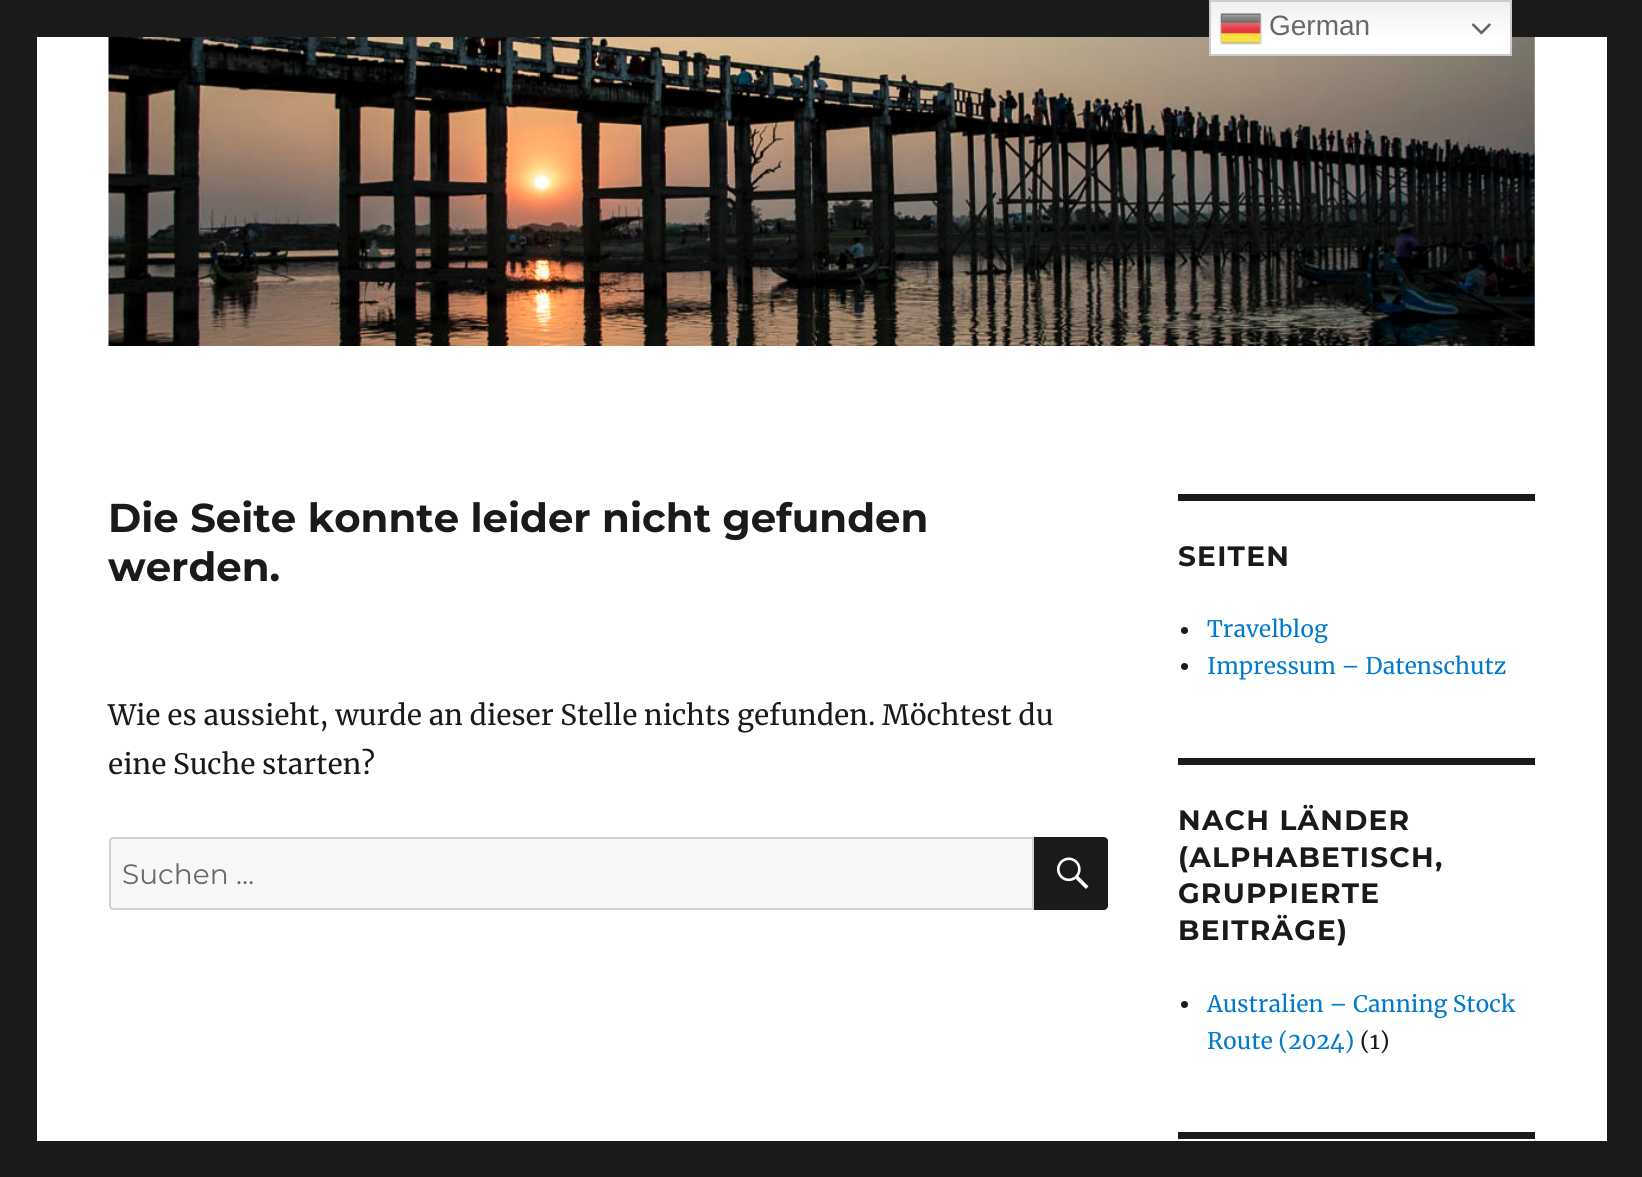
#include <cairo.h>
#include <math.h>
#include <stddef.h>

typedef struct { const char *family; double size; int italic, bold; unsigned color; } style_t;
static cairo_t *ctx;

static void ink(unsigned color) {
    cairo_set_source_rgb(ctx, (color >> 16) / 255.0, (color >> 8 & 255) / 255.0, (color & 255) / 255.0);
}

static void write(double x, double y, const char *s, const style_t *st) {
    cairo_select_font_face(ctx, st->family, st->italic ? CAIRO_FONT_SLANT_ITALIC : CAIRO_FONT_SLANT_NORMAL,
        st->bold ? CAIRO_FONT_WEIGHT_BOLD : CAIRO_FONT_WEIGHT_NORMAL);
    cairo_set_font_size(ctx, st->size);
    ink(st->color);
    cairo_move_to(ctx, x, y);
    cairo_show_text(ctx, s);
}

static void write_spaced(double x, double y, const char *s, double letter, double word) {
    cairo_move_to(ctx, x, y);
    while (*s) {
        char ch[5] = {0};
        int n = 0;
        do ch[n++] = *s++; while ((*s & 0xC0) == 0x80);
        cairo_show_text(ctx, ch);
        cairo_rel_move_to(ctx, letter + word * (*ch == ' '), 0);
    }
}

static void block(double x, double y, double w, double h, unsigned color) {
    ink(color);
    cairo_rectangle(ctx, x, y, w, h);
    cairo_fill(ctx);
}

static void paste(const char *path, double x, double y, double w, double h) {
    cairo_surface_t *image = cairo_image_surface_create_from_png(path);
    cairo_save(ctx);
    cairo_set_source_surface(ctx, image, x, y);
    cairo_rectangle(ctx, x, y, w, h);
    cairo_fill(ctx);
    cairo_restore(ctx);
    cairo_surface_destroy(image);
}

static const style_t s1 = {"Liberation Sans", 28, 0, 0, 0x686868};
static const style_t s2 = {"Montserrat Thin", 40.25, 0, 0, 0x1a1a1a};
static const style_t s3 = {"Merriweather", 28, 0, 0, 0x1a1a1a};
static const style_t s4 = {"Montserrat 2 Thin", 28, 0, 0, 0x686868};
static const style_t s5 = {"Merriweather", 22.75, 0, 0, 0x007acc};
static const style_t s6 = {"Merriweather", 22.75, 0, 0, 0x1a1a1a};

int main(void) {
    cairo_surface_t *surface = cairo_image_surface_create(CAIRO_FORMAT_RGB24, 1642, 1177);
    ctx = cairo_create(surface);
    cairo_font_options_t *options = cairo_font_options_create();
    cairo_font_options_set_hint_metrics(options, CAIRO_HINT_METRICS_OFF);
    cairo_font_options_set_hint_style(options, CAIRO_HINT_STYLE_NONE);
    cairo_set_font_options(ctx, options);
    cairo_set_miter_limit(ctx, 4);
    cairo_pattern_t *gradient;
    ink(0x1a1a1a);
    cairo_paint(ctx);
    block(37, 37, 1570, 1104, 0xffffff);
    paste("pic3.png", 108, 37, 1427, 309);
    gradient = cairo_pattern_create_linear(1361, 0, 1361, 56);
    cairo_pattern_add_color_stop_rgba(gradient, 0, 0.937, 0.937, 0.937, 1);
    cairo_pattern_add_color_stop_rgba(gradient, 0.7, 1, 1, 1, 1);
    cairo_set_source(ctx, gradient);
    cairo_pattern_destroy(gradient);
    cairo_rectangle(ctx, 1211, 2, 299, 52);
    cairo_fill(ctx);
    cairo_rectangle(ctx, 1210, 1, 301, 54);
    ink(0xcccccc);
    cairo_stroke(ctx);
    paste("pic1.png", 1219, 12, 43, 33);
    write(1269, 35, "German", &s1);
    paste("pic2.png", 1472, 23, 19, 12);
    write(108, 532, "Die Seite konnte leider nicht gefunden", &s2);
    write(108, 581, "werden.", &s2);
    write(108, 725, "Wie es aussieht, wurde an dieser Stelle nichts gefunden. Möchtest du", &s3);
    write(108, 774, "eine Suche starten?", &s3);
    ink(0xf7f7f7);
    cairo_new_path(ctx);
    cairo_move_to(ctx, 113, 838);
    cairo_line_to(ctx, 1033, 838);
    cairo_line_to(ctx, 1033, 909);
    cairo_line_to(ctx, 113, 909);
    cairo_curve_to(ctx, 111.5, 909, 110, 907.5, 110, 906);
    cairo_line_to(ctx, 110, 841);
    cairo_curve_to(ctx, 110, 839.5, 111.5, 838, 113, 838);
    cairo_close_path(ctx);
    cairo_fill_preserve(ctx);
    ink(0xd1d1d1);
    cairo_stroke(ctx);
    write(122, 884, "Suchen …", &s4);
    ink(0x1a1a1a);
    cairo_new_path(ctx);
    cairo_move_to(ctx, 1034, 837);
    cairo_line_to(ctx, 1104, 837);
    cairo_curve_to(ctx, 1106, 837, 1108, 839, 1108, 841);
    cairo_line_to(ctx, 1108, 906);
    cairo_curve_to(ctx, 1108, 908, 1106, 910, 1104, 910);
    cairo_line_to(ctx, 1034, 910);
    cairo_close_path(ctx);
    cairo_fill(ctx);
    paste("pic4.png", 1057, 857, 32, 32);
    block(1178, 494, 357, 7, 0x1a1a1a);
    cairo_select_font_face(ctx, "Montserrat Thin", CAIRO_FONT_SLANT_NORMAL, CAIRO_FONT_WEIGHT_NORMAL);
    write_spaced(1178, 566, "SEITEN", 1.25, 0);
    cairo_new_path(ctx);
    cairo_arc(ctx, 1184.5, 630.5, 3.5, 0, 2 * M_PI);
    cairo_fill(ctx);
    write(1207, 637, "Travelblog", &s5);
    ink(0x1a1a1a);
    cairo_new_path(ctx);
    cairo_arc(ctx, 1184.5, 666.5, 3.5, 0, 2 * M_PI);
    cairo_fill(ctx);
    write(1207, 674, "Impressum – Datenschutz", &s5);
    block(1178, 758, 357, 7, 0x1a1a1a);
    cairo_select_font_face(ctx, "Montserrat Thin", CAIRO_FONT_SLANT_NORMAL, CAIRO_FONT_WEIGHT_NORMAL);
    cairo_set_font_size(ctx, 28);
    write_spaced(1178, 830, "NACH LÄNDER", 1.25, 0);
    write_spaced(1178, 867, "(ALPHABETISCH,", 1.25, 0);
    write_spaced(1178, 903, "GRUPPIERTE", 1.25, 0);
    write_spaced(1178, 940, "BEITRÄGE)", 1.25, 0);
    cairo_new_path(ctx);
    cairo_arc(ctx, 1184.5, 1004.5, 3.5, 0, 2 * M_PI);
    cairo_fill(ctx);
    write(1207, 1012, "Australien – Canning Stock", &s5);
    write(1207, 1049, "Route (2024)", &s5);
    write(1360, 1049, "(1)", &s6);
    block(1178, 1132, 357, 7, 0x1a1a1a);
    cairo_surface_write_to_png(surface, "screenshot.png");
    cairo_font_options_destroy(options);
    cairo_destroy(ctx);
    cairo_surface_destroy(surface);
    return 0;
}
